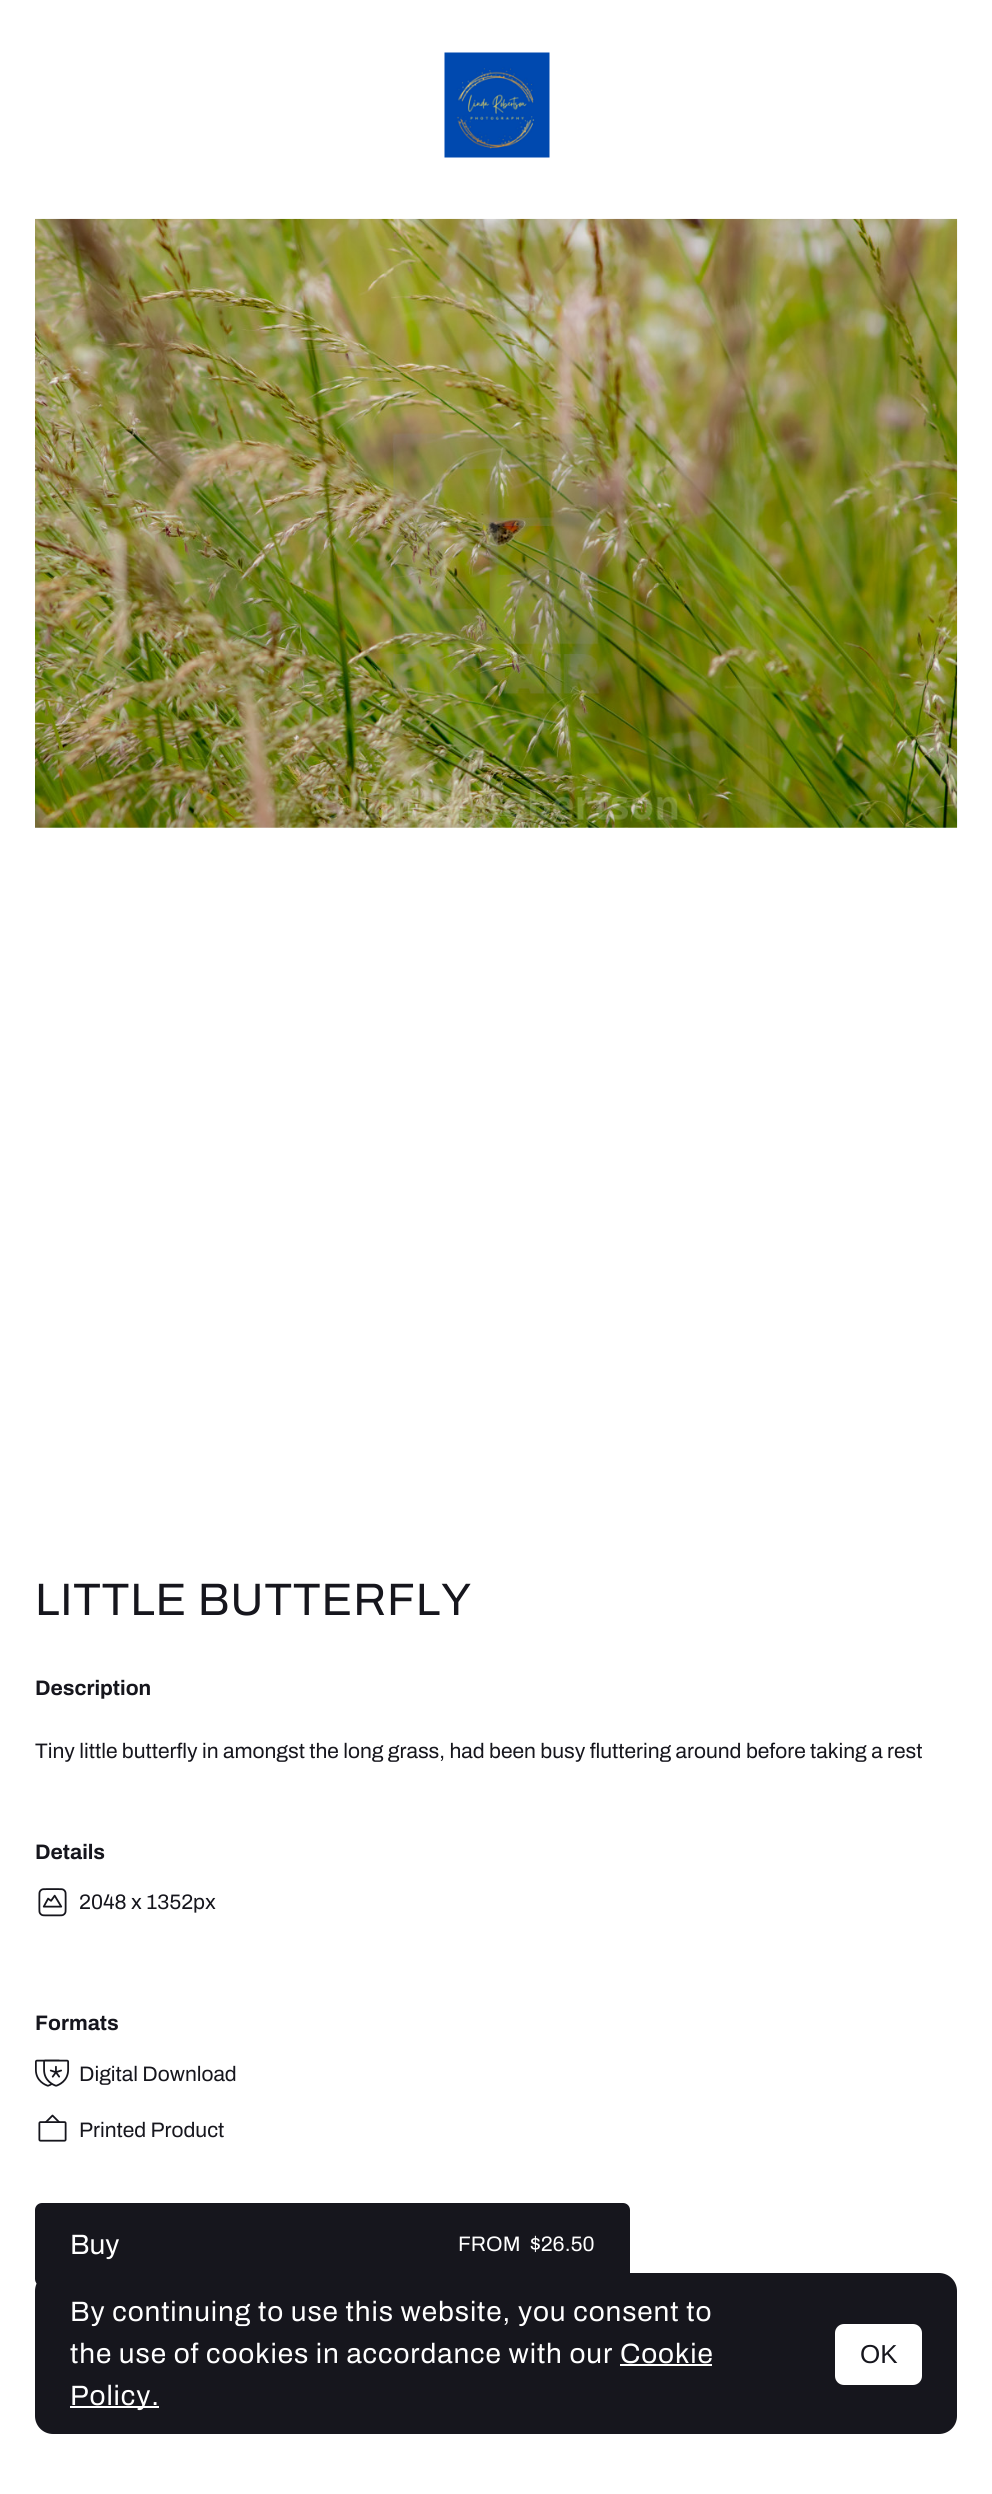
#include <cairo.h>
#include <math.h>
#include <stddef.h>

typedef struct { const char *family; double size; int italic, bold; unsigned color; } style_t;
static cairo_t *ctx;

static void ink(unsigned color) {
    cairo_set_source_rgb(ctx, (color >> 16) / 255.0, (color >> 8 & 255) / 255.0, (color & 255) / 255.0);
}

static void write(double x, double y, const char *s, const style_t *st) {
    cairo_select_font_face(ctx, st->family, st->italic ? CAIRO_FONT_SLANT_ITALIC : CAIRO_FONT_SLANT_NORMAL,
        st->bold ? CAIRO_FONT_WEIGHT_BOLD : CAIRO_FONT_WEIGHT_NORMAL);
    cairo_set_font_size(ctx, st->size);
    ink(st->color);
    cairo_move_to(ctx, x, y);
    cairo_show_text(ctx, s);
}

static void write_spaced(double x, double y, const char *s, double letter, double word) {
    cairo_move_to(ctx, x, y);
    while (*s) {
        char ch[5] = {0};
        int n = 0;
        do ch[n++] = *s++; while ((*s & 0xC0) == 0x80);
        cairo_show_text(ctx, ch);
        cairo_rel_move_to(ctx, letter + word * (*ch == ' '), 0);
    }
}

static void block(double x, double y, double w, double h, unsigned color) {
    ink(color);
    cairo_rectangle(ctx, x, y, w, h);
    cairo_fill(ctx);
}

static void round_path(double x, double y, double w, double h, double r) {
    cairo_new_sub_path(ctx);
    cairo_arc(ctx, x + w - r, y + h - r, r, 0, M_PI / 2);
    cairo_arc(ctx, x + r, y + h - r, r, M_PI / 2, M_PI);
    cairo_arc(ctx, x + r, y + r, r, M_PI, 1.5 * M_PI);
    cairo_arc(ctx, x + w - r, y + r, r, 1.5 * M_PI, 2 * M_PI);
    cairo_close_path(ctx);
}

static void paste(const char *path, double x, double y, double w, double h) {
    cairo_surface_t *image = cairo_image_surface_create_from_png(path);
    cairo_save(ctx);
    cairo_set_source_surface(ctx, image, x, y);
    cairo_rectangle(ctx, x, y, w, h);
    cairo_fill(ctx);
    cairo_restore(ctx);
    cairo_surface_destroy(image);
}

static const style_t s1 = {"Archivo", 21, 0, 1, 0x16161d};
static const style_t s2 = {"Archivo", 21, 0, 0, 0x16161d};
static const style_t s3 = {"Archivo", 28, 0, 0, 0xffffff};
static const style_t s4 = {"Archivo", 21, 0, 0, 0xffffff};
static const style_t s5 = {"Liberation Sans", 26, 0, 0, 0x16161d};

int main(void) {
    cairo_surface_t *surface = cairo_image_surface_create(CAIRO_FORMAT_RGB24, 992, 2494);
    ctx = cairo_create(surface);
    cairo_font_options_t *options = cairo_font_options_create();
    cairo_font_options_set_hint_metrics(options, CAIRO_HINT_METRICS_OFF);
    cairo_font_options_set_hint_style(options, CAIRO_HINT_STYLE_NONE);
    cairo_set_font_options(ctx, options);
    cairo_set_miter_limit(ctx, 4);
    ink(0xffffff);
    cairo_paint(ctx);
    paste("pic1.png", 444, 52, 106, 106);
    paste("pic2.png", 35, 218, 923, 610);
    cairo_select_font_face(ctx, "Archivo", CAIRO_FONT_SLANT_NORMAL, CAIRO_FONT_WEIGHT_NORMAL);
    cairo_set_font_size(ctx, 45.5);
    ink(0x16161d);
    write_spaced(35, 1615, "LITTLE BUTTERFLY", 0.9, 0);
    write(35, 1695, "Description", &s1);
    write(35, 1758, "Tiny little butterfly in amongst the long grass, had been busy fluttering around before taking a rest", &s2);
    write(35, 1859, "Details", &s1);
    paste("pic3.png", 38, 1888, 29, 29);
    write(79, 1909, "2048 x 1352px", &s2);
    write(35, 2030, "Formats", &s1);
    paste("pic4.png", 35, 2059, 35, 28);
    write(79, 2081, "Digital Download", &s2);
    paste("pic5.png", 38, 2114, 29, 28);
    write(79, 2137, "Printed Product", &s2);
    round_path(35, 2203, 595, 83, 7);
    cairo_fill(ctx);
    write(70, 2254, "Buy", &s3);
    write(458, 2251, "FROM", &s4);
    write(530, 2251, "$26.50", &s4);
    ink(0x16161d);
    round_path(35, 2273, 922, 161, 18);
    cairo_fill(ctx);
    cairo_set_font_size(ctx, 28);
    ink(0xffffff);
    write_spaced(70, 2321, "By continuing to use this website, you consent to", 0.9, 0);
    write_spaced(70, 2363, "the use of cookies in accordance with our Cookie", 0.9, 0);
    block(70, 2406, 89, 2, 0xffffff);
    write_spaced(70, 2405, "Policy.", 0.9, 0);
    block(620, 2364, 92, 2, 0xffffff);
    round_path(835, 2324, 87, 61, 9);
    cairo_fill(ctx);
    write(860, 2363, "OK", &s5);
    cairo_surface_write_to_png(surface, "screenshot.png");
    cairo_font_options_destroy(options);
    cairo_destroy(ctx);
    cairo_surface_destroy(surface);
    return 0;
}
